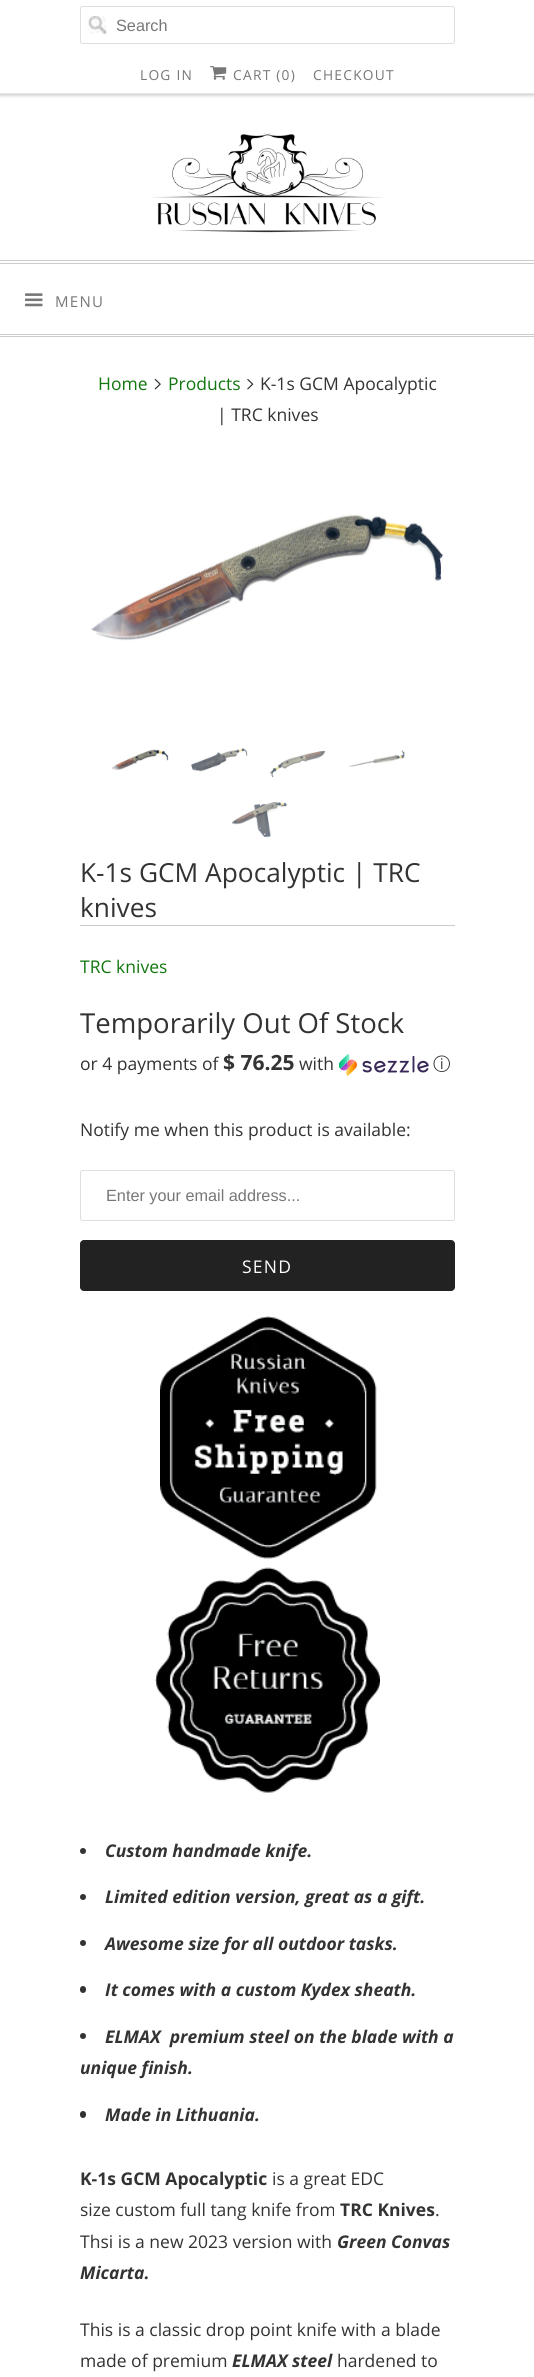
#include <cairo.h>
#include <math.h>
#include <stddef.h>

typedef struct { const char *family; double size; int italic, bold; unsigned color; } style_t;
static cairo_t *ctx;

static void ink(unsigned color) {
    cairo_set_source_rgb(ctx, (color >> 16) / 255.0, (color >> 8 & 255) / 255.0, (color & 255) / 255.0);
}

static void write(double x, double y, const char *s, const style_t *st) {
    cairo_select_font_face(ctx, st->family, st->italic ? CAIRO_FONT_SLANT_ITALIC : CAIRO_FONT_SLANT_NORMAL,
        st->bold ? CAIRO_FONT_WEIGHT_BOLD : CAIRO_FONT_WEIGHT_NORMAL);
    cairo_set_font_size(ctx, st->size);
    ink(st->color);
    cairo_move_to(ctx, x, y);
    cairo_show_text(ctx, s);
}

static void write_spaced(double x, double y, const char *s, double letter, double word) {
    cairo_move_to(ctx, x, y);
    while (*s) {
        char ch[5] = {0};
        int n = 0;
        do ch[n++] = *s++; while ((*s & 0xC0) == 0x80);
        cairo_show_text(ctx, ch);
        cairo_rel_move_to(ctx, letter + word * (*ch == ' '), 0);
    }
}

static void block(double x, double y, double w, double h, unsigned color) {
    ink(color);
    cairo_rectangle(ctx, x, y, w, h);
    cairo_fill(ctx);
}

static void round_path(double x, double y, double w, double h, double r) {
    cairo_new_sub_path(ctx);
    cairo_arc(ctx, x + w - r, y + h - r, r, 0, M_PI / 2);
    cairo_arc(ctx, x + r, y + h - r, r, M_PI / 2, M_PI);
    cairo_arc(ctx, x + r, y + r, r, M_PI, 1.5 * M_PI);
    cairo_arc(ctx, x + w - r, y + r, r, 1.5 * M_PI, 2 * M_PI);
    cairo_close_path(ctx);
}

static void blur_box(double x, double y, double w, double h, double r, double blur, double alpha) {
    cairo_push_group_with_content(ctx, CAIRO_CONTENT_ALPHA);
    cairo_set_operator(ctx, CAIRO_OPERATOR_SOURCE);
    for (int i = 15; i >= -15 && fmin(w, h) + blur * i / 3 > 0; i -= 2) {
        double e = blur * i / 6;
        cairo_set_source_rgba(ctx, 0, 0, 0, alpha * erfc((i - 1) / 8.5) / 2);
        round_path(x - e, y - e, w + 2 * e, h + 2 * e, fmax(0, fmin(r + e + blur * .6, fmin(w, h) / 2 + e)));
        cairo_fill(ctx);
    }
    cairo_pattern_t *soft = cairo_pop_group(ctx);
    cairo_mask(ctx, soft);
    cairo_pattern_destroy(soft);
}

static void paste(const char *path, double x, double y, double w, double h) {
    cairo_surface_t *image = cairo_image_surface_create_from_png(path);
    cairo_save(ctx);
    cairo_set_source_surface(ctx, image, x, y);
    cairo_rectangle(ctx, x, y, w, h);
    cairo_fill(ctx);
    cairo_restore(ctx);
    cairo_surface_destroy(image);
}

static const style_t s1 = {"Liberation Sans", 16.25, 0, 0, 0x777777};
static const style_t s2 = {"Open Sans", 17.5, 0, 0, 0x12770e};
static const style_t s3 = {"Open Sans", 17.5, 0, 0, 0x333333};
static const style_t s4 = {"Open Sans", 26.25, 0, 0, 0x333333};
static const style_t s5 = {"Open Sans", 27.5, 0, 0, 0x333333};
static const style_t s6 = {"Open Sans", 21, 0, 1, 0x333333};
static const style_t s7 = {"WenQuanYi Zen Hei Medium", 17.5, 0, 0, 0x333333};
static const style_t s8 = {"Open Sans", 17.5, 1, 1, 0x333333};
static const style_t s9 = {"Open Sans", 17.5, 0, 1, 0x333333};

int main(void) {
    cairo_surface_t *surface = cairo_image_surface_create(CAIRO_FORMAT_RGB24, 534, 2377);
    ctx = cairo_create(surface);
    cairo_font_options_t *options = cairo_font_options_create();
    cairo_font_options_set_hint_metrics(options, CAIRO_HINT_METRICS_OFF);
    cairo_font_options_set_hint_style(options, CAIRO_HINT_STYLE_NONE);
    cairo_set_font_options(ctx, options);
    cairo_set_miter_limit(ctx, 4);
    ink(0xffffff);
    cairo_paint(ctx);
    ink(0x000000);
    blur_box(0, 1, 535, 94, 0, 2, 0.25);
    block(0, 0, 534, 93, 0xffffff);
    block(0, 93, 534, 1, 0xe6e6e6);
    paste("pic1.png", 88, 16, 19, 18);
    round_path(80.5, 6.5, 374, 37, 2);
    ink(0xdfdfdf);
    cairo_set_line_width(ctx, 1);
    cairo_stroke(ctx);
    write(116, 31, "Search", &s1);
    cairo_select_font_face(ctx, "Open Sans", CAIRO_FONT_SLANT_NORMAL, CAIRO_FONT_WEIGHT_NORMAL);
    cairo_set_font_size(ctx, 13.75);
    write_spaced(140, 80, "LOG IN", 1.25, 0);
    paste("pic2.png", 210, 66, 17, 14);
    write_spaced(233, 80, "CART (0)", 1.25, 0);
    write_spaced(313, 80, "CHECKOUT", 1.25, 0);
    paste("pic3.png", 150, 133, 236, 100);
    block(0, 260, 534, 1, 0xcccccc);
    block(0, 263, 534, 1, 0xcccccc);
    block(0, 334, 534, 1, 0xcccccc);
    block(0, 336, 534, 1, 0xcccccc);
    paste("pic4.png", 25, 293, 18, 14);
    cairo_set_font_size(ctx, 15);
    ink(0x777777);
    write_spaced(55, 307, "MENU", 1.25, 0);
    write(98, 390, "Home", &s2);
    paste("pic5.png", 154, 378, 7, 12);
    write(168, 390, "Products", &s2);
    paste("pic6.png", 247, 379, 7, 11);
    write(260, 390, "K-1s GCM Apocalyptic", &s3);
    write(217, 421, "| TRC knives", &s3);
    paste("pic7.png", 91, 501, 352, 140);
    paste("pic8.png", 111, 749, 58, 21);
    paste("pic9.png", 191, 748, 57, 24);
    paste("pic10.png", 270, 750, 56, 28);
    paste("pic11.png", 348, 750, 57, 18);
    paste("pic12.png", 231, 801, 57, 37);
    block(80, 925, 375, 1, 0xcccccc);
    write(80, 882, "K-1s GCM Apocalyptic | TRC", &s4);
    write(80, 917, "knives", &s4);
    write(80, 973, "TRC knives", &s2);
    write(80, 1033, "Temporarily Out Of Stock", &s5);
    write(80, 1070, "or 4 payments of", &s3);
    write(223, 1070, "$ 76.25", &s6);
    write(299, 1070, "with", &s3);
    paste("pic13.png", 339, 1054, 90, 22);
    write(433, 1070, "ⓘ", &s7);
    write(80, 1136, "Notify me when this product is available:", &s3);
    round_path(80.5, 1170.5, 374, 50, 2);
    ink(0xdfdfdf);
    cairo_stroke(ctx);
    write(106, 1201, "Enter your email address...", &s1);
    ink(0x222222);
    round_path(80.5, 1240.5, 374, 50, 3.5);
    cairo_fill_preserve(ctx);
    cairo_stroke(ctx);
    cairo_select_font_face(ctx, "Open Sans", CAIRO_FONT_SLANT_NORMAL, CAIRO_FONT_WEIGHT_NORMAL);
    cairo_set_font_size(ctx, 17.5);
    ink(0xffffff);
    write_spaced(242, 1273, "SEND", 1.25, 0);
    paste("pic14.png", 160, 1316, 217, 243);
    paste("pic15.png", 155, 1567, 225, 226);
    ink(0x333333);
    cairo_arc(ctx, 83, 1851, 3, 0, 2 * M_PI);
    cairo_fill(ctx);
    write(105, 1857, "Custom handmade knife.", &s8);
    cairo_new_path(ctx);
    cairo_arc(ctx, 83, 1897, 3, 0, 2 * M_PI);
    cairo_fill(ctx);
    write(105, 1903, "Limited edition version, great as a gift.", &s8);
    cairo_new_path(ctx);
    cairo_arc(ctx, 83, 1943, 3, 0, 2 * M_PI);
    cairo_fill(ctx);
    write(105, 1950, "Awesome size for all outdoor tasks.", &s8);
    round_path(80, 1986, 6, 7, 3);
    cairo_fill(ctx);
    write(105, 1996, "It comes with a custom Kydex sheath.", &s8);
    cairo_new_path(ctx);
    cairo_arc(ctx, 83, 2036, 3, 0, 2 * M_PI);
    cairo_fill(ctx);
    write(105, 2043, "ELMAX  premium steel on the blade with a", &s8);
    write(80, 2074, "unique finish.", &s8);
    round_path(80, 2111, 6, 7, 3);
    cairo_fill(ctx);
    write(105, 2121, "Made in Lithuania.", &s8);
    write(80, 2185, "K-1s GCM Apocalyptic", &s9);
    write(272, 2185, "is a great EDC", &s3);
    write(80, 2216, "size custom full tang knife from", &s3);
    write(340, 2216, "TRC Knives", &s9);
    write(435, 2216, ".", &s3);
    write(80, 2248, "Thsi is a new 2023 version with", &s3);
    write(337, 2248, "Green Convas", &s8);
    write(80, 2279, "Micarta.", &s8);
    write(80, 2336, "This is a classic drop point knife with a blade", &s3);
    write(80, 2367, "made of premium", &s3);
    write(232, 2367, "ELMAX steel", &s8);
    write(337, 2367, "hardened to", &s3);
    cairo_surface_write_to_png(surface, "screenshot.png");
    cairo_font_options_destroy(options);
    cairo_destroy(ctx);
    cairo_surface_destroy(surface);
    return 0;
}
